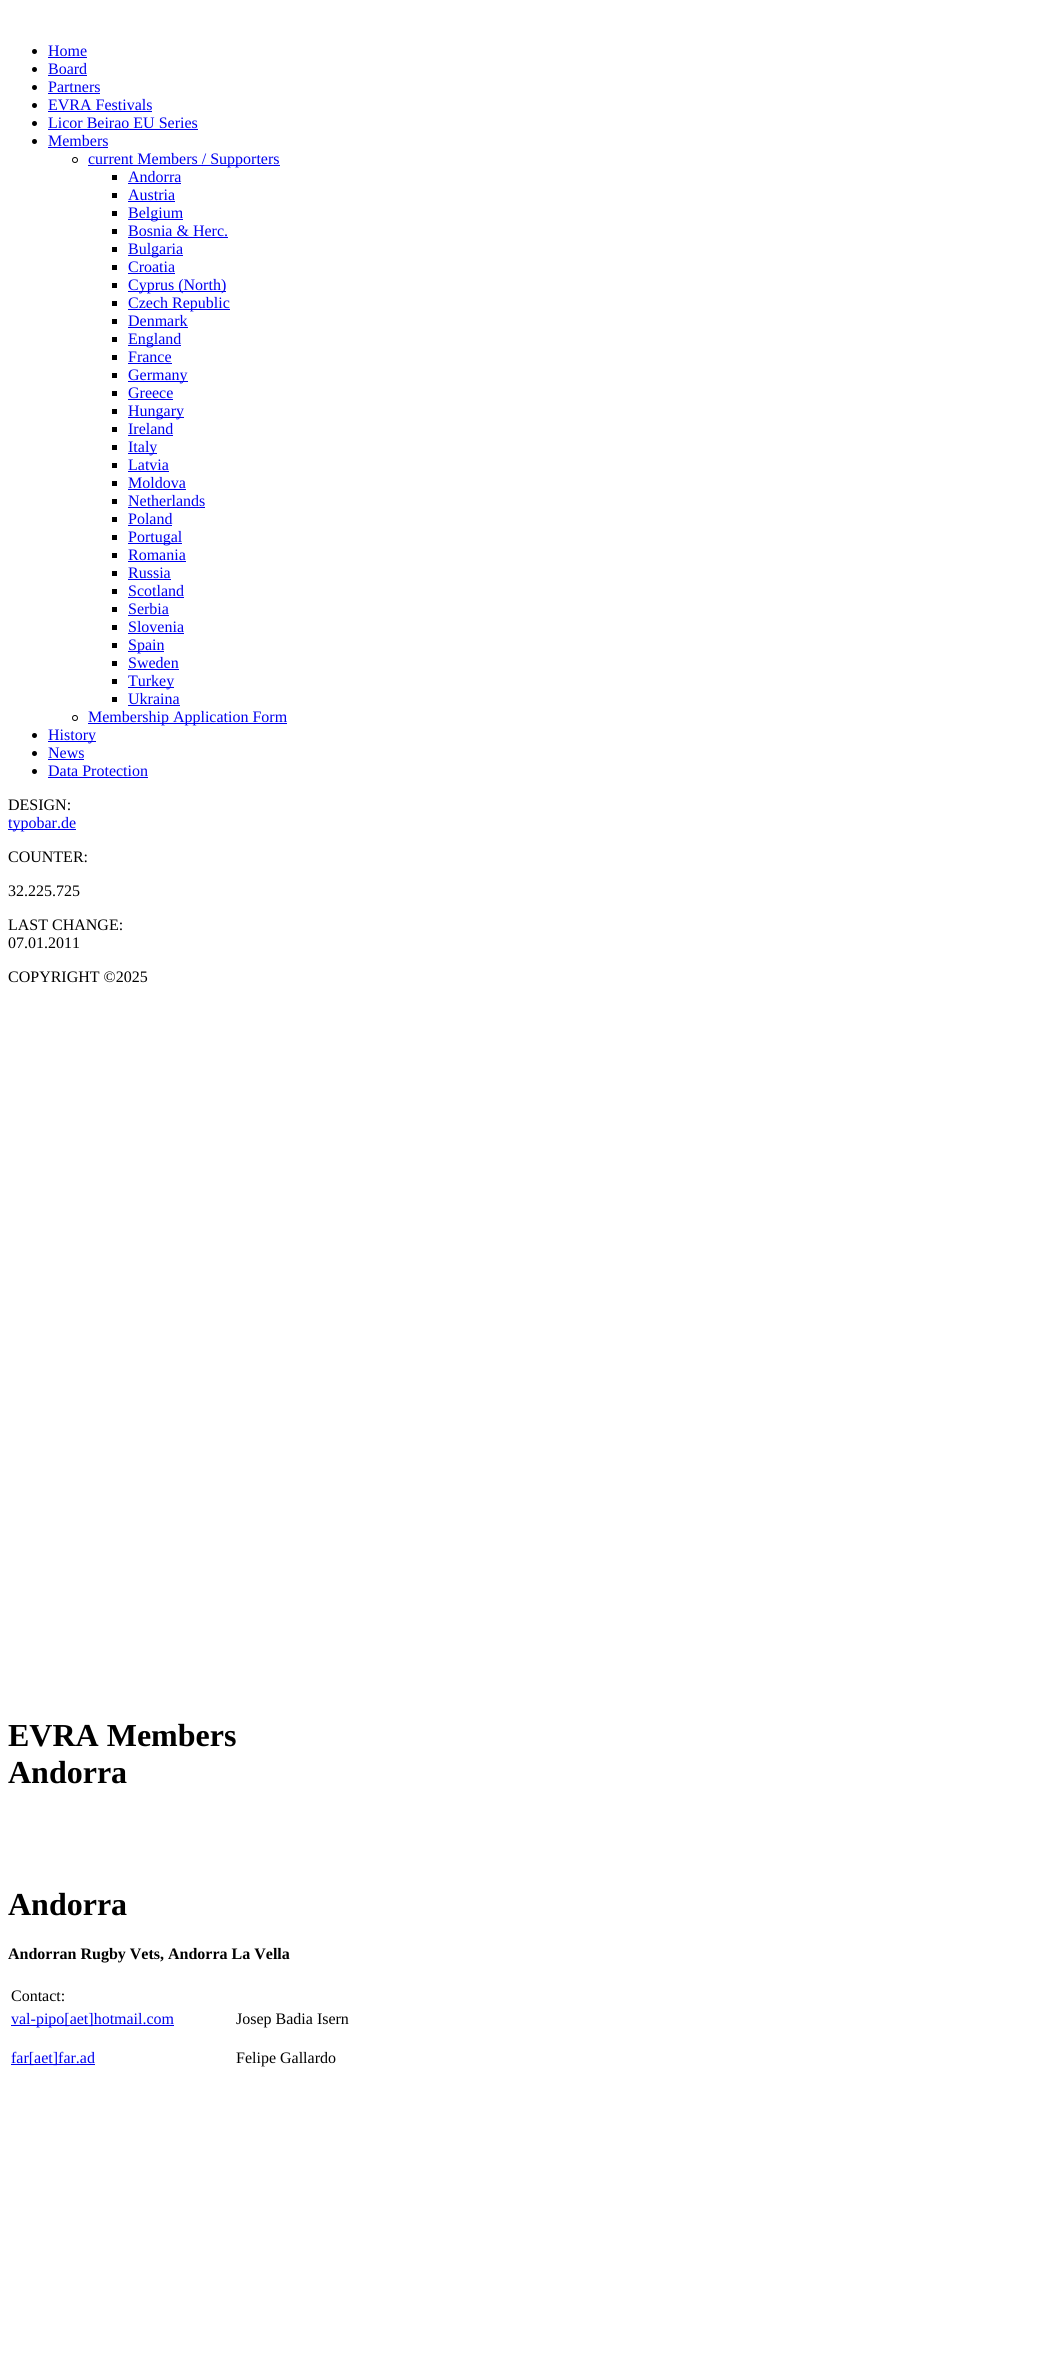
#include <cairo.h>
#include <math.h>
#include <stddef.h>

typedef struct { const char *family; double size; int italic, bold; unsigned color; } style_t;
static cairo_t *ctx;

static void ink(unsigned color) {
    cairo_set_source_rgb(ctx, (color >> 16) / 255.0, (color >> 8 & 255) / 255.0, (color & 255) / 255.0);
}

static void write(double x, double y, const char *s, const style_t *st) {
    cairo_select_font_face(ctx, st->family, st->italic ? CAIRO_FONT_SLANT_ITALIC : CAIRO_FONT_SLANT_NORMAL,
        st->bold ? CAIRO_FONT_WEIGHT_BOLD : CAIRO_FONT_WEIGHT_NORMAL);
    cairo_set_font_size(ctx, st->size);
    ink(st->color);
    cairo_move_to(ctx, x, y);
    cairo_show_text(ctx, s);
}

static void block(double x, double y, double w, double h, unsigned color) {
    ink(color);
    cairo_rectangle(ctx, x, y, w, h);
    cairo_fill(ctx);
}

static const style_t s1 = {"Liberation Serif", 16, 0, 0, 0x0000ee};
static const style_t s2 = {"Liberation Serif", 16, 0, 0, 0x000000};
static const style_t s3 = {"Liberation Serif", 32, 0, 1, 0x000000};
static const style_t s4 = {"Liberation Serif", 16, 0, 1, 0x000000};

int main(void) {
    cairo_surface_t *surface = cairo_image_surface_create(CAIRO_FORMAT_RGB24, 1061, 2354);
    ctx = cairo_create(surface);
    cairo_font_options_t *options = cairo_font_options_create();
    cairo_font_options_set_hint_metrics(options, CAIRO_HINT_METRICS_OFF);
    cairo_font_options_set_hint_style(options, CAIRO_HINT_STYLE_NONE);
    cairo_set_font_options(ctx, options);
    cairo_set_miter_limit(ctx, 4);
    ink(0xffffff);
    cairo_paint(ctx);
    ink(0x000000);
    cairo_arc(ctx, 34.5, 51.5, 2.5, 0, 2 * M_PI);
    cairo_fill(ctx);
    write(48, 56, "Home", &s1);
    block(48, 57, 39, 1, 0x0000ee);
    ink(0x000000);
    cairo_new_path(ctx);
    cairo_arc(ctx, 34.5, 69.5, 2.5, 0, 2 * M_PI);
    cairo_fill(ctx);
    write(48, 74, "Board", &s1);
    block(48, 75, 39, 1, 0x0000ee);
    ink(0x000000);
    cairo_new_path(ctx);
    cairo_arc(ctx, 34.5, 87.5, 2.5, 0, 2 * M_PI);
    cairo_fill(ctx);
    write(48, 92, "Partners", &s1);
    block(48, 93, 52, 1, 0x0000ee);
    ink(0x000000);
    cairo_new_path(ctx);
    cairo_arc(ctx, 34.5, 105.5, 2.5, 0, 2 * M_PI);
    cairo_fill(ctx);
    write(48, 110, "EVRA Festivals", &s1);
    block(48, 111, 104, 1, 0x0000ee);
    ink(0x000000);
    cairo_new_path(ctx);
    cairo_arc(ctx, 34.5, 123.5, 2.5, 0, 2 * M_PI);
    cairo_fill(ctx);
    write(48, 128, "Licor Beirao EU Series", &s1);
    block(48, 129, 150, 1, 0x0000ee);
    ink(0x000000);
    cairo_new_path(ctx);
    cairo_arc(ctx, 34.5, 141.5, 2.5, 0, 2 * M_PI);
    cairo_fill(ctx);
    write(48, 146, "Members", &s1);
    block(48, 147, 60, 1, 0x0000ee);
    cairo_new_path(ctx);
    cairo_arc(ctx, 75, 160, 2.5, 0, 2 * M_PI);
    ink(0x000000);
    cairo_set_line_width(ctx, 1);
    cairo_stroke(ctx);
    block(88, 165, 192, 1, 0x0000ee);
    write(88, 164, "current Members / Supporters", &s1);
    block(112, 175, 5, 5, 0x000000);
    write(128, 182, "Andorra", &s1);
    block(128, 183, 53, 1, 0x0000ee);
    block(112, 193, 5, 5, 0x000000);
    write(128, 200, "Austria", &s1);
    block(128, 201, 47, 1, 0x0000ee);
    block(112, 211, 5, 5, 0x000000);
    block(128, 219, 55, 1, 0x0000ee);
    write(128, 218, "Belgium", &s1);
    block(112, 229, 5, 5, 0x000000);
    write(128, 236, "Bosnia & Herc.", &s1);
    block(128, 237, 100, 1, 0x0000ee);
    block(112, 247, 5, 5, 0x000000);
    block(128, 255, 55, 1, 0x0000ee);
    write(128, 254, "Bulgaria", &s1);
    block(112, 265, 5, 5, 0x000000);
    write(128, 272, "Croatia", &s1);
    block(128, 273, 47, 1, 0x0000ee);
    block(112, 283, 5, 5, 0x000000);
    block(128, 291, 98, 1, 0x0000ee);
    write(128, 290, "Cyprus (North)", &s1);
    block(112, 301, 5, 5, 0x000000);
    block(128, 309, 102, 1, 0x0000ee);
    write(128, 308, "Czech Republic", &s1);
    block(112, 319, 5, 5, 0x000000);
    write(128, 326, "Denmark", &s1);
    block(128, 327, 60, 1, 0x0000ee);
    block(112, 337, 5, 5, 0x000000);
    block(128, 345, 53, 1, 0x0000ee);
    write(128, 344, "England", &s1);
    block(112, 355, 5, 5, 0x000000);
    write(128, 362, "France", &s1);
    block(128, 363, 44, 1, 0x0000ee);
    block(112, 373, 5, 5, 0x000000);
    block(128, 381, 60, 1, 0x0000ee);
    write(128, 380, "Germany", &s1);
    block(112, 391, 5, 5, 0x000000);
    write(128, 398, "Greece", &s1);
    block(128, 399, 45, 1, 0x0000ee);
    block(112, 409, 5, 5, 0x000000);
    block(128, 417, 56, 1, 0x0000ee);
    write(128, 416, "Hungary", &s1);
    block(112, 427, 5, 5, 0x000000);
    write(128, 434, "Ireland", &s1);
    block(128, 435, 45, 1, 0x0000ee);
    block(112, 445, 5, 5, 0x000000);
    block(128, 453, 29, 1, 0x0000ee);
    write(128, 452, "Italy", &s1);
    block(112, 463, 5, 5, 0x000000);
    write(128, 470, "Latvia", &s1);
    block(128, 471, 41, 1, 0x0000ee);
    block(112, 481, 5, 5, 0x000000);
    write(128, 488, "Moldova", &s1);
    block(128, 489, 58, 1, 0x0000ee);
    block(112, 499, 5, 5, 0x000000);
    write(128, 506, "Netherlands", &s1);
    block(128, 507, 77, 1, 0x0000ee);
    block(112, 517, 5, 5, 0x000000);
    write(128, 524, "Poland", &s1);
    block(128, 525, 44, 1, 0x0000ee);
    block(112, 535, 5, 5, 0x000000);
    block(128, 543, 54, 1, 0x0000ee);
    write(128, 542, "Portugal", &s1);
    block(112, 553, 5, 5, 0x000000);
    write(128, 560, "Romania", &s1);
    block(128, 561, 58, 1, 0x0000ee);
    block(112, 571, 5, 5, 0x000000);
    write(128, 578, "Russia", &s1);
    block(128, 579, 43, 1, 0x0000ee);
    block(112, 589, 5, 5, 0x000000);
    write(128, 596, "Scotland", &s1);
    block(128, 597, 56, 1, 0x0000ee);
    block(112, 607, 5, 5, 0x000000);
    write(128, 614, "Serbia", &s1);
    block(128, 615, 41, 1, 0x0000ee);
    block(112, 625, 5, 5, 0x000000);
    write(128, 632, "Slovenia", &s1);
    block(128, 633, 56, 1, 0x0000ee);
    block(112, 643, 5, 5, 0x000000);
    block(128, 651, 36, 1, 0x0000ee);
    write(128, 650, "Spain", &s1);
    block(112, 661, 5, 5, 0x000000);
    write(128, 668, "Sweden", &s1);
    block(128, 669, 51, 1, 0x0000ee);
    block(112, 679, 5, 5, 0x000000);
    block(128, 687, 46, 1, 0x0000ee);
    write(128, 686, "Turkey", &s1);
    block(112, 697, 5, 5, 0x000000);
    write(128, 704, "Ukraina", &s1);
    block(128, 705, 52, 1, 0x0000ee);
    cairo_new_path(ctx);
    cairo_arc(ctx, 75, 718, 2.5, 0, 2 * M_PI);
    ink(0x000000);
    cairo_stroke(ctx);
    block(88, 723, 199, 1, 0x0000ee);
    write(88, 722, "Membership Application Form", &s1);
    ink(0x000000);
    cairo_new_path(ctx);
    cairo_arc(ctx, 34.5, 735.5, 2.5, 0, 2 * M_PI);
    cairo_fill(ctx);
    block(48, 741, 48, 1, 0x0000ee);
    write(48, 740, "History", &s1);
    ink(0x000000);
    cairo_new_path(ctx);
    cairo_arc(ctx, 34.5, 753.5, 2.5, 0, 2 * M_PI);
    cairo_fill(ctx);
    write(48, 758, "News", &s1);
    block(48, 759, 36, 1, 0x0000ee);
    ink(0x000000);
    cairo_new_path(ctx);
    cairo_arc(ctx, 34.5, 771.5, 2.5, 0, 2 * M_PI);
    cairo_fill(ctx);
    write(48, 776, "Data Protection", &s1);
    block(48, 777, 100, 1, 0x0000ee);
    write(8, 810, "DESIGN:", &s2);
    block(8, 829, 68, 1, 0x0000ee);
    write(8, 828, "typobar.de", &s1);
    write(8, 862, "COUNTER:", &s2);
    write(8, 896, "32.225.725", &s2);
    write(8, 930, "LAST CHANGE:", &s2);
    write(8, 948, "07.01.2011", &s2);
    write(8, 982, "COPYRIGHT ©2025", &s2);
    write(8, 1746, "EVRA Members", &s3);
    write(8, 1783, "Andorra", &s3);
    write(8, 1915, "Andorra", &s3);
    write(8, 1959, "Andorran Rugby Vets, Andorra La Vella", &s4);
    write(11, 2001, "Contact:", &s2);
    block(11, 2025, 163, 1, 0x0000ee);
    write(11, 2024, "val-pipo[aet]hotmail.com", &s1);
    write(236, 2024, "Josep Badia Isern", &s2);
    block(11, 2064, 84, 1, 0x0000ee);
    write(11, 2063, "far[aet]far.ad", &s1);
    write(236, 2063, "Felipe Gallardo", &s2);
    cairo_surface_write_to_png(surface, "screenshot.png");
    cairo_font_options_destroy(options);
    cairo_destroy(ctx);
    cairo_surface_destroy(surface);
    return 0;
}
